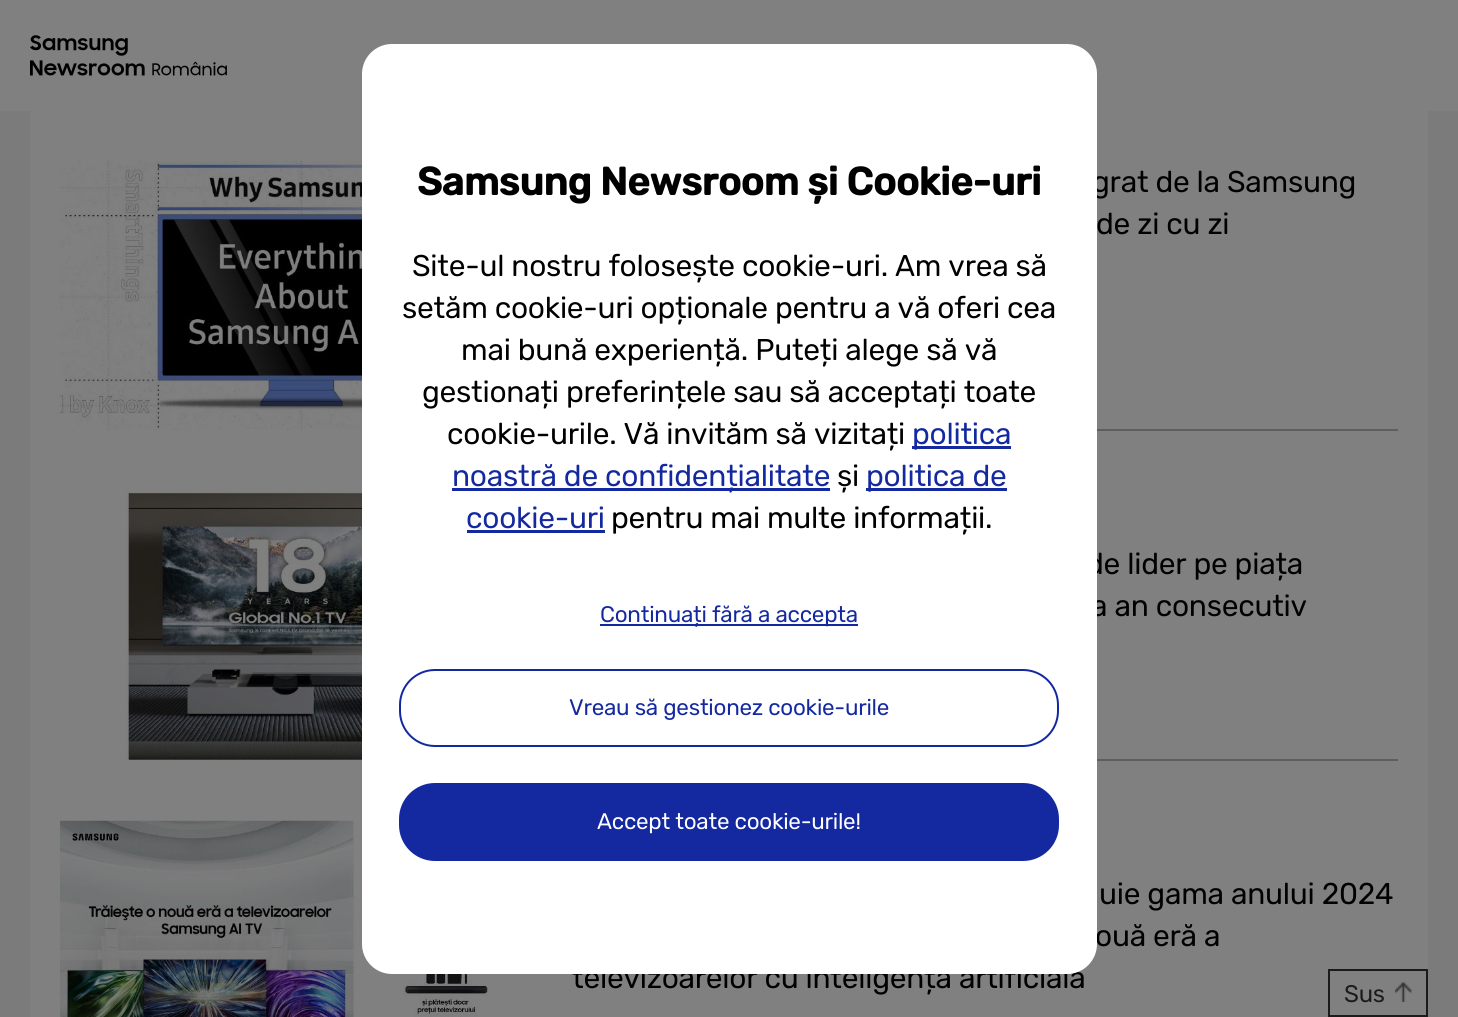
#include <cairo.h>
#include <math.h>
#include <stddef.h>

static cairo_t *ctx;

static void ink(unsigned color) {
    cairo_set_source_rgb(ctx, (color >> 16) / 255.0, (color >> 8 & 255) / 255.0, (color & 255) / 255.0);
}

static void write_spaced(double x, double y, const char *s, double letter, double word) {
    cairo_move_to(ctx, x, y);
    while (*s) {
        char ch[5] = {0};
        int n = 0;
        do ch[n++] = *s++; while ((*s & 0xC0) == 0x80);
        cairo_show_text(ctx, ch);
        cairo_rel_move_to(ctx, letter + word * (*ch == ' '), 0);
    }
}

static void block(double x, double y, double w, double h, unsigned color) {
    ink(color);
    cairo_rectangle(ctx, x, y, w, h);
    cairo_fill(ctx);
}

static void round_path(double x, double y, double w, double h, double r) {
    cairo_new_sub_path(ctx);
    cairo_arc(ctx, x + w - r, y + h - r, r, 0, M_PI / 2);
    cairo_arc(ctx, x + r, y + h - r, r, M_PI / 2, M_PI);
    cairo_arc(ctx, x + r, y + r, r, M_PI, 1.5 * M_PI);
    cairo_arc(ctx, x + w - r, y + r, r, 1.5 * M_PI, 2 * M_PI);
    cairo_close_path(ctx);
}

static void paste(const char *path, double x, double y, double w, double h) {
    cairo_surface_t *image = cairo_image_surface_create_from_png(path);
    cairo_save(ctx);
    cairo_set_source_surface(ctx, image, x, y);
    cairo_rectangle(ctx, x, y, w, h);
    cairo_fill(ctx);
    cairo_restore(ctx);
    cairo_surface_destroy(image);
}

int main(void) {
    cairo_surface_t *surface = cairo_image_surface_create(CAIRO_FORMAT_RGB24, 1458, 1017);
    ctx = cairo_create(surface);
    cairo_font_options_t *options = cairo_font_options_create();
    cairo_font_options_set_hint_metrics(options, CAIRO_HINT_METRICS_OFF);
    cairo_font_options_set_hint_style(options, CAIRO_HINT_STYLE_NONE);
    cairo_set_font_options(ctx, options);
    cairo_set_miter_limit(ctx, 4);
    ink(0x7b7b7b);
    cairo_paint(ctx);
    block(0, 0, 1458, 111, 0x808080);
    block(30, 111, 1398, 906, 0x808080);
    cairo_select_font_face(ctx, "Rubik", CAIRO_FONT_SLANT_NORMAL, CAIRO_FONT_WEIGHT_NORMAL);
    cairo_set_font_size(ctx, 30);
    ink(0x000000);
    write_spaced(1092, 192, "grat de la Samsung", -0.25, 0);
    write_spaced(1086, 574, "de lider pe piața", -0.25, 0);
    write_spaced(1091, 616, "a an consecutiv", -0.25, 0);
    paste("pic4.png", 60, 820, 465, 197);
    write_spaced(1095, 946, "ouă eră a", -0.25, 0);
    write_spaced(572, 988, "televizoarelor cu inteligență artificială", -0.25, 0);
    ink(0xffffff);
    round_path(362, 44, 735, 930, 30);
    cairo_fill(ctx);
    cairo_select_font_face(ctx, "Rubik", CAIRO_FONT_SLANT_NORMAL, CAIRO_FONT_WEIGHT_BOLD);
    cairo_set_font_size(ctx, 39);
    ink(0x000000);
    write_spaced(417, 195, "Samsung Newsroom și Cookie-uri", -0.25, 0);
    cairo_select_font_face(ctx, "Rubik", CAIRO_FONT_SLANT_NORMAL, CAIRO_FONT_WEIGHT_NORMAL);
    cairo_set_font_size(ctx, 30);
    write_spaced(412, 276, "Site-ul nostru folosește cookie-uri. Am vrea să", -0.25, 0);
    write_spaced(402, 318, "setăm cookie-uri opționale pentru a vă oferi cea", -0.25, 0);
    write_spaced(461, 360, "mai bună experiență. Puteți alege să vă", -0.25, 0);
    write_spaced(422, 402, "gestionați preferințele sau să acceptați toate", -0.25, 0);
    write_spaced(447, 444, "cookie-urile. Vă invităm să vizitați", -0.25, 0);
    block(912, 446, 99, 3, 0x1429a0);
    write_spaced(912, 444, "politica", -0.25, 0);
    block(452, 488, 378, 3, 0x1429a0);
    write_spaced(452, 486, "noastră de confidențialitate", -0.25, 0);
    ink(0x000000);
    write_spaced(837, 486, "și", -0.25, 0);
    block(866, 488, 141, 3, 0x1429a0);
    write_spaced(866, 486, "politica de", -0.25, 0);
    write_spaced(466, 528, "cookie-uri", -0.25, 0);
    block(467, 530, 138, 3, 0x1429a0);
    ink(0x000000);
    write_spaced(611, 528, "pentru mai multe informații.", -0.25, 0);
    block(600, 624, 258, 2, 0x1429a0);
    cairo_set_font_size(ctx, 22.5);
    write_spaced(600, 622, "Continuați fără a accepta", -0.25, 0);
    round_path(400, 670, 658, 76, 35);
    cairo_stroke(ctx);
    write_spaced(569, 715, "Vreau să gestionez cookie-urile", -0.25, 0);
    ink(0x1428a0);
    round_path(400, 784, 658, 76, 35);
    cairo_fill_preserve(ctx);
    ink(0x1429a0);
    cairo_stroke(ctx);
    ink(0xffffff);
    write_spaced(597, 829, "Accept toate cookie-urile!", -0.25, 0);
    paste("pic1.png", 30, 35, 197, 41);
    paste("pic2.png", 60, 160, 302, 271);
    cairo_set_font_size(ctx, 30);
    ink(0x000000);
    write_spaced(1096, 234, "de zi cu zi", -0.25, 0);
    block(1097, 429, 301, 2, 0x5e5e5e);
    paste("pic3.png", 126, 491, 236, 269);
    block(1097, 759, 301, 2, 0x5e5e5e);
    ink(0x000000);
    write_spaced(1099, 904, "uie gama anului 2024", -0.25, 0);
    cairo_rectangle(ctx, 1329, 970, 98, 46);
    ink(0x1b1b1b);
    cairo_stroke(ctx);
    cairo_set_font_size(ctx, 24);
    write_spaced(1344, 1002, "Sus", -0.25, 0);
    paste("pic5.png", 1395, 982, 17, 20);
    cairo_surface_write_to_png(surface, "screenshot.png");
    cairo_font_options_destroy(options);
    cairo_destroy(ctx);
    cairo_surface_destroy(surface);
    return 0;
}
